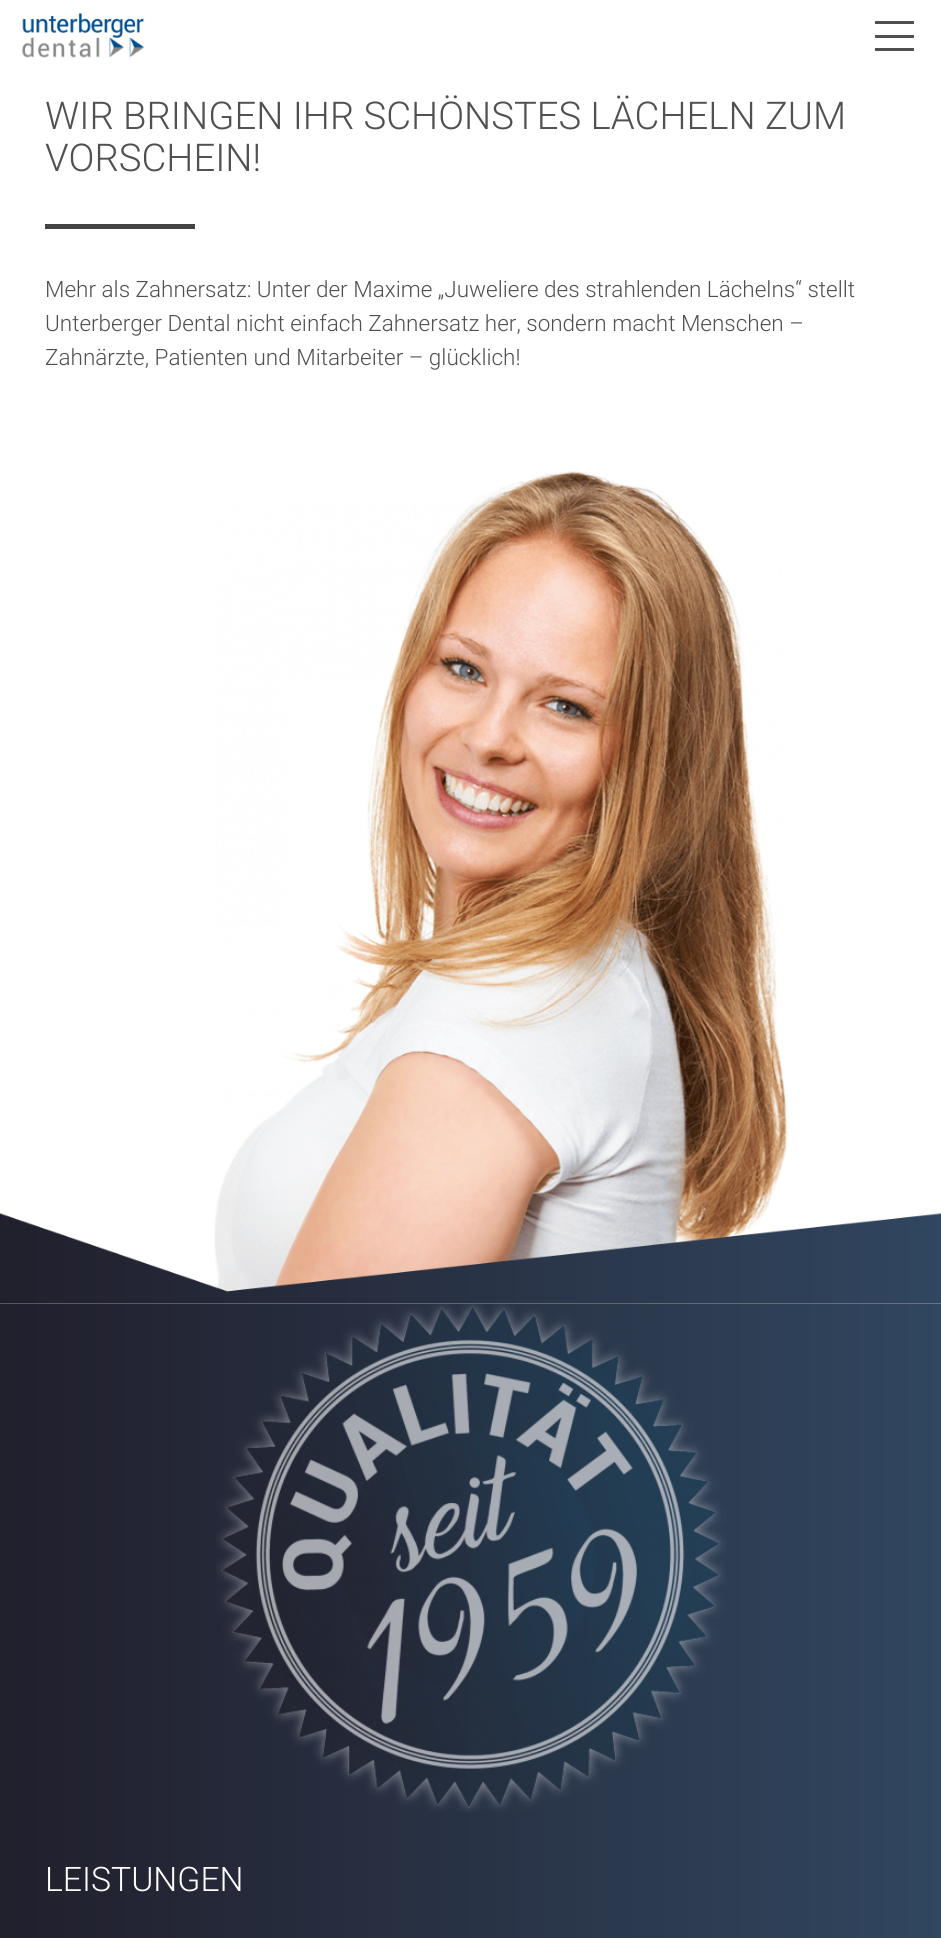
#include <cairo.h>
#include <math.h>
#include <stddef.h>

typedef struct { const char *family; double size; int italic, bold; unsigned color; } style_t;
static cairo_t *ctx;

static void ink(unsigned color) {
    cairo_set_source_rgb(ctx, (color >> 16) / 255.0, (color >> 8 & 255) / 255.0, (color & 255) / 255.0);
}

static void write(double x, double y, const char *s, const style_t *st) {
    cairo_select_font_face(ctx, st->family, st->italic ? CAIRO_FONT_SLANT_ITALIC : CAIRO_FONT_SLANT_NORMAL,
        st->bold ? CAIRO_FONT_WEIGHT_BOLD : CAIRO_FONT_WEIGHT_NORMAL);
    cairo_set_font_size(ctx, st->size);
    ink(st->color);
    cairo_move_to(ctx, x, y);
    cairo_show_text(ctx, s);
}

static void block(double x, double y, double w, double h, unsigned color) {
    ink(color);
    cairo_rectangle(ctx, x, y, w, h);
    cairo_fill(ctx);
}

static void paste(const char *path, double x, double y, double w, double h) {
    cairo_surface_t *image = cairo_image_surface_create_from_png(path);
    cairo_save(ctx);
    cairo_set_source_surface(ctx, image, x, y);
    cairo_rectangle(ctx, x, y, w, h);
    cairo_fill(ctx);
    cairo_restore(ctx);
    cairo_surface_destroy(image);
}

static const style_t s1 = {"Roboto Light", 38.25, 0, 0, 0x50504f};
static const style_t s2 = {"Roboto Light", 22.5, 0, 0, 0x50504f};
static const style_t s3 = {"Roboto Light", 33.75, 0, 0, 0xffffff};

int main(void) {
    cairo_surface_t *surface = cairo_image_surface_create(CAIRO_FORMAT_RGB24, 941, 1938);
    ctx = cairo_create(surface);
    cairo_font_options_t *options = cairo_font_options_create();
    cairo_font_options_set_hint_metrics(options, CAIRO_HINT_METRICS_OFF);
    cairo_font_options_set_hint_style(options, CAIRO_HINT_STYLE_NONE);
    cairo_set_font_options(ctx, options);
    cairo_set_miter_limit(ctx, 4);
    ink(0xffffff);
    cairo_paint(ctx);
    paste("pic1.png", 22, 13, 122, 45);
    block(875, 21, 39, 3, 0x50504f);
    block(875, 35, 39, 3, 0x50504f);
    block(875, 48, 39, 3, 0x50504f);
    write(45, 129, "WIR BRINGEN IHR SCHÖNSTES LÄCHELN ZUM", &s1);
    write(45, 171, "VORSCHEIN!", &s1);
    block(45, 224, 150, 5, 0x444444);
    write(45, 297, "Mehr als Zahnersatz: Unter der Maxime „Juweliere des strahlenden Lächelns“ stellt", &s2);
    write(45, 331, "Unterberger Dental nicht einfach Zahnersatz her, sondern macht Menschen –", &s2);
    write(45, 365, "Zahnärzte, Patienten und Mitarbeiter – glücklich!", &s2);
    paste("pic2.png", 214, 471, 576, 821);
    paste("pic3.png", 0, 1303, 941, 635);
    paste("pic4.png", 0, 1213, 941, 91);
    paste("pic5.png", 216, 1304, 510, 508);
    write(45, 1891, "LEISTUNGEN", &s3);
    cairo_surface_write_to_png(surface, "screenshot.png");
    cairo_font_options_destroy(options);
    cairo_destroy(ctx);
    cairo_surface_destroy(surface);
    return 0;
}
